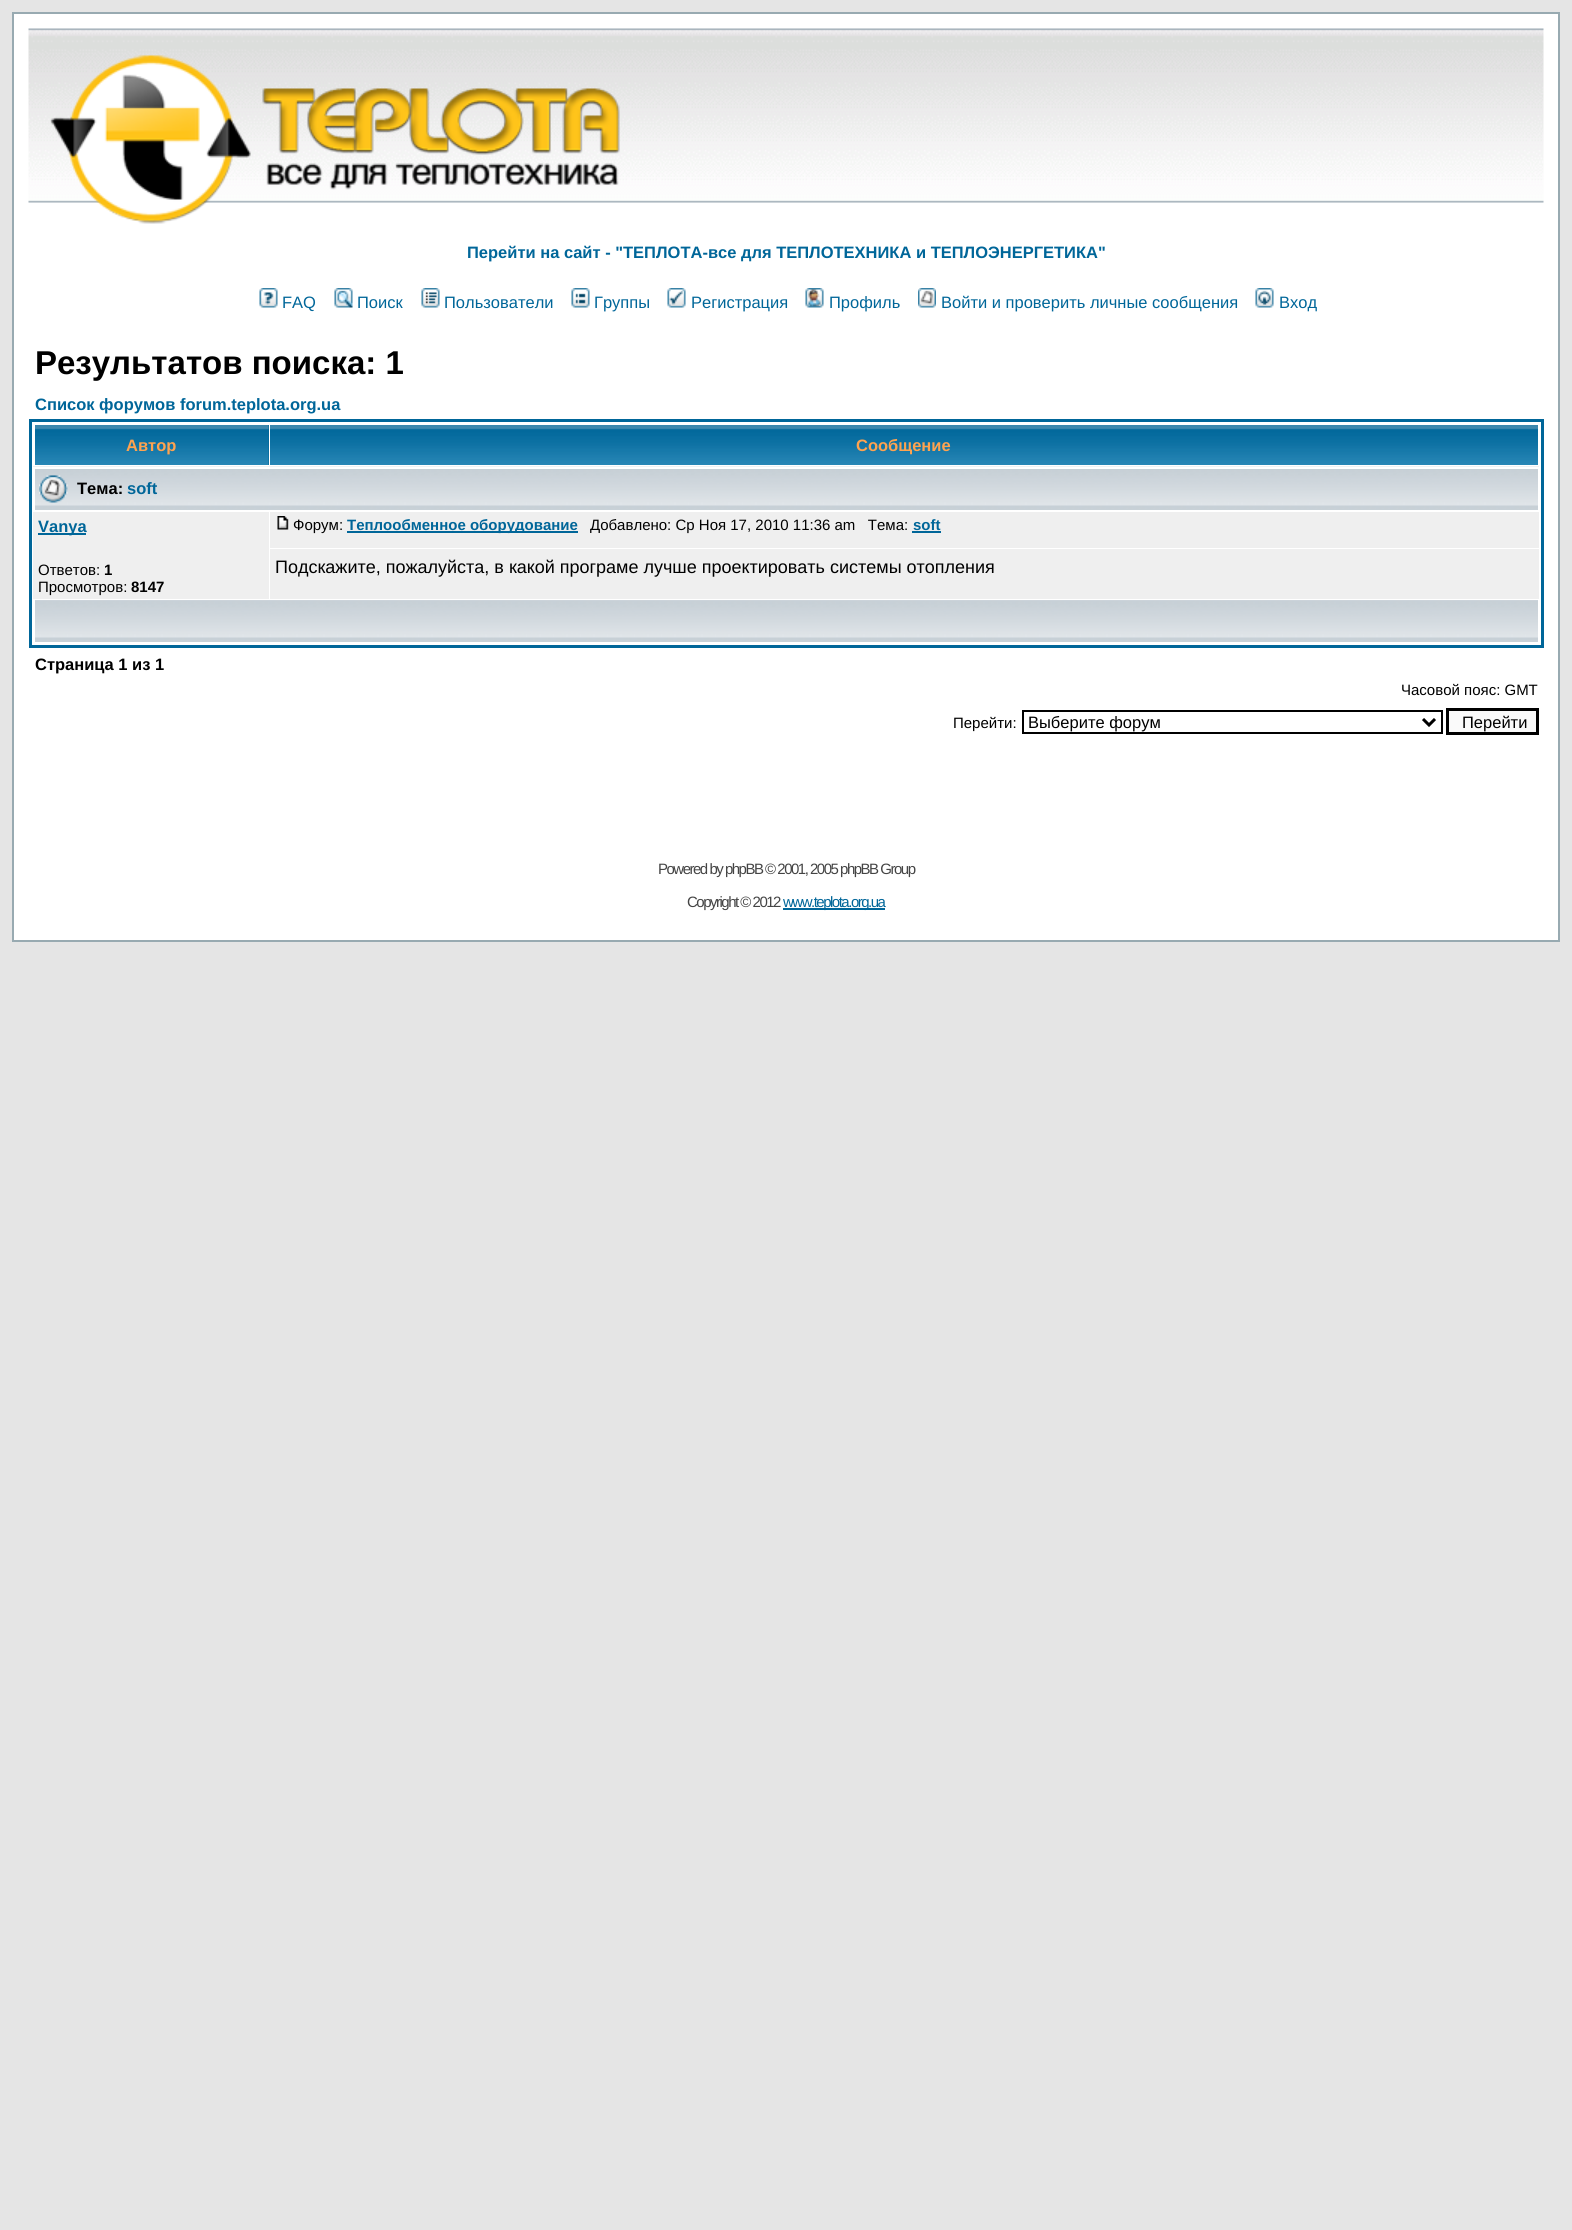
#include <cairo.h>
#include <math.h>
#include <stddef.h>

typedef struct { const char *family; double size; int italic, bold; unsigned color; } style_t;
static cairo_t *ctx;

static void ink(unsigned color) {
    cairo_set_source_rgb(ctx, (color >> 16) / 255.0, (color >> 8 & 255) / 255.0, (color & 255) / 255.0);
}

static void write(double x, double y, const char *s, const style_t *st) {
    cairo_select_font_face(ctx, st->family, st->italic ? CAIRO_FONT_SLANT_ITALIC : CAIRO_FONT_SLANT_NORMAL,
        st->bold ? CAIRO_FONT_WEIGHT_BOLD : CAIRO_FONT_WEIGHT_NORMAL);
    cairo_set_font_size(ctx, st->size);
    ink(st->color);
    cairo_move_to(ctx, x, y);
    cairo_show_text(ctx, s);
}

static void write_spaced(double x, double y, const char *s, double letter, double word) {
    cairo_move_to(ctx, x, y);
    while (*s) {
        char ch[5] = {0};
        int n = 0;
        do ch[n++] = *s++; while ((*s & 0xC0) == 0x80);
        cairo_show_text(ctx, ch);
        cairo_rel_move_to(ctx, letter + word * (*ch == ' '), 0);
    }
}

static void block(double x, double y, double w, double h, unsigned color) {
    ink(color);
    cairo_rectangle(ctx, x, y, w, h);
    cairo_fill(ctx);
}

static void paste(const char *path, double x, double y, double w, double h) {
    cairo_surface_t *image = cairo_image_surface_create_from_png(path);
    cairo_save(ctx);
    cairo_set_source_surface(ctx, image, x, y);
    cairo_rectangle(ctx, x, y, w, h);
    cairo_fill(ctx);
    cairo_restore(ctx);
    cairo_surface_destroy(image);
}

static const style_t s1 = {"Liberation Sans", 16.5, 0, 1, 0x006699};
static const style_t s2 = {"Liberation Sans", 16.5, 0, 0, 0x006699};
static const style_t s3 = {"Liberation Sans", 33, 0, 1, 0x000000};
static const style_t s4 = {"Liberation Sans", 16.5, 0, 1, 0xffa34f};
static const style_t s5 = {"Liberation Sans", 16.5, 0, 1, 0x000000};
static const style_t s6 = {"Liberation Sans", 15, 0, 0, 0x000000};
static const style_t s7 = {"Liberation Sans", 15, 0, 1, 0x000000};
static const style_t s8 = {"Liberation Sans", 15, 0, 1, 0x006699};
static const style_t s9 = {"Liberation Sans", 18, 0, 0, 0x000000};
static const style_t s10 = {"Liberation Sans", 16.5, 0, 0, 0x000000};

int main(void) {
    cairo_surface_t *surface = cairo_image_surface_create(CAIRO_FORMAT_RGB24, 1572, 2230);
    ctx = cairo_create(surface);
    cairo_font_options_t *options = cairo_font_options_create();
    cairo_font_options_set_hint_metrics(options, CAIRO_HINT_METRICS_OFF);
    cairo_font_options_set_hint_style(options, CAIRO_HINT_STYLE_NONE);
    cairo_set_font_options(ctx, options);
    cairo_set_miter_limit(ctx, 4);
    ink(0xe5e5e5);
    cairo_paint(ctx);
    ink(0xffffff);
    cairo_rectangle(ctx, 13, 13, 1546, 928);
    cairo_fill_preserve(ctx);
    ink(0x98aab1);
    cairo_stroke(ctx);
    paste("pic1.png", 28, 28, 1516, 175);
    paste("pic2.png", 50, 55, 570, 169);
    write(467, 258, "Перейти на cайт - \"ТЕПЛОТА-все для ТЕПЛОТЕХНИКА и ТЕПЛОЭНЕРГЕТИКА\"", &s1);
    paste("pic3.png", 259, 288, 19, 20);
    write(282, 308, "FAQ", &s2);
    paste("pic4.png", 334, 288, 19, 20);
    write(357, 308, "Поиск", &s2);
    paste("pic5.png", 421, 288, 19, 20);
    write(444, 308, "Пользователи", &s2);
    paste("pic6.png", 571, 288, 19, 20);
    write(594, 308, "Группы", &s2);
    paste("pic7.png", 667, 288, 19, 20);
    write(691, 308, "Регистрация", &s2);
    paste("pic8.png", 805, 288, 19, 20);
    write(829, 308, "Профиль", &s2);
    paste("pic9.png", 918, 288, 18, 20);
    write(941, 308, "Войти и проверить личные сообщения", &s2);
    paste("pic10.png", 1255, 288, 19, 20);
    write(1279, 308, "Вход", &s2);
    write(35, 374, "Результатов поиска: 1", &s3);
    write(35, 410, "Список форумов forum.teplota.org.ua", &s1);
    cairo_rectangle(ctx, 30.5, 420.5, 1512, 226);
    cairo_set_line_width(ctx, 3);
    cairo_stroke(ctx);
    block(268, 425, 1, 40, 0x006699);
    paste("pic11.png", 35, 425, 234, 40);
    write(126, 451, "Автор", &s4);
    paste("pic12.png", 270, 425, 1268, 40);
    write(856, 451, "Сообщение", &s4);
    paste("pic13.png", 33, 466, 1506, 44);
    block(33, 467, 1506, 2, 0xffffff);
    block(1538, 467, 1, 43, 0xffffff);
    block(33, 467, 2, 43, 0xffffff);
    paste("pic14.png", 39, 475, 29, 28);
    write(77, 494, "Тема:", &s5);
    write(127, 494, "soft", &s1);
    block(33, 512, 236, 87, 0xefefef);
    block(38, 533, 48, 2, 0x006699);
    write(38, 532, "Vanya", &s1);
    write(38, 575, "Ответов:", &s6);
    write(104, 575, "1", &s7);
    write(38, 592, "Просмотров:", &s6);
    write(131, 592, "8147", &s7);
    block(270, 512, 1269, 36, 0xefefef);
    paste("pic15.png", 277, 516, 12, 14);
    write(293, 530, "Форум:", &s6);
    block(347, 531, 231, 2, 0x006699);
    write(347, 530, "Теплообменное оборудование", &s8);
    write(590, 530, "Добавлено: Ср Ноя 17, 2010 11:36 am   Тема:", &s6);
    write(913, 530, "soft", &s8);
    block(912, 531, 29, 2, 0x006699);
    block(270, 549, 1269, 50, 0xefefef);
    write(275, 573, "Подскажите, пожалуйста, в какой програме лучше проектировать системы отопления", &s9);
    paste("pic16.png", 35, 600, 1503, 42);
    write(35, 670, "Страница 1 из 1", &s5);
    write(1401, 695, "Часовой пояс: GMT", &s6);
    write(953, 728, "Перейти:", &s6);
    cairo_rectangle(ctx, 1023, 711, 419, 22);
    cairo_set_line_width(ctx, 2);
    cairo_stroke(ctx);
    cairo_new_path(ctx);
    cairo_move_to(ctx, 1423, 719);
    cairo_line_to(ctx, 1429, 725);
    cairo_line_to(ctx, 1435, 719);
    cairo_set_line_width(ctx, 3);
    cairo_stroke(ctx);
    write(1028, 728, "Выберите форум", &s10);
    ink(0xfafafa);
    cairo_rectangle(ctx, 1447.5, 709.5, 90, 24);
    cairo_fill_preserve(ctx);
    ink(0x000000);
    cairo_stroke(ctx);
    write(1462, 728, "Перейти", &s10);
    cairo_set_font_size(ctx, 15);
    ink(0x444444);
    write_spaced(658, 874, "Powered by phpBB © 2001, 2005 phpBB Group", -1.5, 0);
    write_spaced(687, 907, "Copyright © 2012", -1.5, 0);
    block(783, 908, 102, 2, 0x006699);
    write_spaced(783, 907, "www.teplota.org.ua", -1.5, 0);
    cairo_surface_write_to_png(surface, "screenshot.png");
    cairo_font_options_destroy(options);
    cairo_destroy(ctx);
    cairo_surface_destroy(surface);
    return 0;
}
